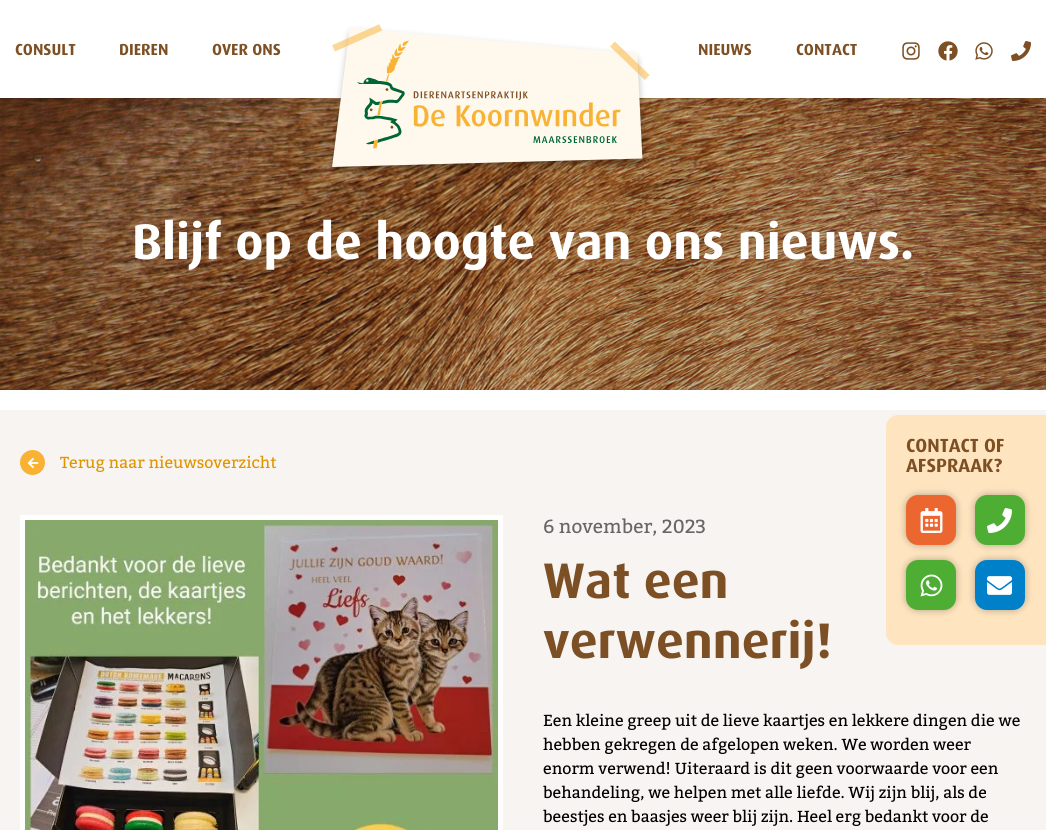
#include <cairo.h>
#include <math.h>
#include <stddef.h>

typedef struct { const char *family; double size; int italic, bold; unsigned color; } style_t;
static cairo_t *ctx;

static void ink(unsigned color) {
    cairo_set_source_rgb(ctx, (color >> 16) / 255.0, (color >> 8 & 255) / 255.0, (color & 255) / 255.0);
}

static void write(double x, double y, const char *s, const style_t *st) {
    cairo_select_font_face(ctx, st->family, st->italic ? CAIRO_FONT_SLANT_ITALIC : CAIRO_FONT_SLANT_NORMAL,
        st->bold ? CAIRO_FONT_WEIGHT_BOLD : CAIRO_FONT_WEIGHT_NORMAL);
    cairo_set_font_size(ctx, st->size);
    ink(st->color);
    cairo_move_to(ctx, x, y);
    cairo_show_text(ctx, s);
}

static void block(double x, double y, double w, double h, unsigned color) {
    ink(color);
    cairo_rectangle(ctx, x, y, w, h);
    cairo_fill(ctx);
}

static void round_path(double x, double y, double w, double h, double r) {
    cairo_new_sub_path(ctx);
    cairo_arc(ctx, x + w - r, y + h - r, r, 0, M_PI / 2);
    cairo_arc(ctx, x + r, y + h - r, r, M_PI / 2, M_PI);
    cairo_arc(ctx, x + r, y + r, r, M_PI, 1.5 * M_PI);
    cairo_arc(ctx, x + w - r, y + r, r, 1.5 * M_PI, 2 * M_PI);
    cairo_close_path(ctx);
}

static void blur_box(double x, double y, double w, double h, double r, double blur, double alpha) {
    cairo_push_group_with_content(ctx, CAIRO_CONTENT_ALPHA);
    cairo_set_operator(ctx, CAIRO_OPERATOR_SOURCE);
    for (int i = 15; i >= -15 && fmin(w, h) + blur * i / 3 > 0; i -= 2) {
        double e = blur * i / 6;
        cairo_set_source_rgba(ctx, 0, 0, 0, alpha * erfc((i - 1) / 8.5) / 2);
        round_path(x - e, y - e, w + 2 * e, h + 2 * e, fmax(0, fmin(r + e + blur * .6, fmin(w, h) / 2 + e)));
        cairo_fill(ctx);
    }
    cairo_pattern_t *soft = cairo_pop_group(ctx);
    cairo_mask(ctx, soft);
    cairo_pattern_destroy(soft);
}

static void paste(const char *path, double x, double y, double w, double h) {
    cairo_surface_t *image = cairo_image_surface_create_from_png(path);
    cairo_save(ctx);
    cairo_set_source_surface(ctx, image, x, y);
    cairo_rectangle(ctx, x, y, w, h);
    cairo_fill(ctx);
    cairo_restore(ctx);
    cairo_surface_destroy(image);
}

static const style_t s1 = {"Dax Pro", 16, 0, 1, 0x7d4f24};
static const style_t s2 = {"Dax Pro", 50, 0, 1, 0xffffff};
static const style_t s3 = {"Bitter", 16, 0, 0, 0xe09600};
static const style_t s4 = {"Bitter", 19, 0, 0, 0x666666};
static const style_t s5 = {"Dax Pro", 50, 0, 1, 0x7d4f24};
static const style_t s6 = {"Bitter", 16, 0, 0, 0x000000};
static const style_t s7 = {"Dax Pro", 19, 0, 1, 0x7d4f24};

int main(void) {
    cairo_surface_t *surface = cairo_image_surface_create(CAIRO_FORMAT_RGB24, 1046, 830);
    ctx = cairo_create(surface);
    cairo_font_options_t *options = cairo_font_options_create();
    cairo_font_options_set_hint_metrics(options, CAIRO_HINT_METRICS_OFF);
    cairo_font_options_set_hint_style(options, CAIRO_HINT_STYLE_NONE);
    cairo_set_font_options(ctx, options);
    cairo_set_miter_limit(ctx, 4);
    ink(0xffffff);
    cairo_paint(ctx);
    paste("pic6.png", 0, 98, 1046, 292);
    ink(0x000000);
    blur_box(0, 0, 1046, 98, 0, 7, 0.2);
    block(0, 0, 1046, 98, 0xffffff);
    write(15, 55, "CONSULT", &s1);
    write(119, 55, "DIEREN", &s1);
    write(212, 55, "OVER ONS", &s1);
    paste("pic1.png", 329, 24, 321, 152);
    write(698, 55, "NIEUWS", &s1);
    write(796, 55, "CONTACT", &s1);
    paste("pic2.png", 902, 42, 18, 18);
    paste("pic3.png", 938, 41, 20, 20);
    paste("pic4.png", 975, 42, 18, 18);
    paste("pic5.png", 1011, 41, 20, 20);
    write(132, 259, "Blijf op de hoogte van ons nieuws.", &s2);
    block(0, 410, 1046, 420, 0xf8f4f2);
    ink(0xf9b233);
    cairo_new_path(ctx);
    cairo_arc(ctx, 32.5, 462.5, 12.5, 0, 2 * M_PI);
    cairo_fill(ctx);
    paste("pic7.png", 27, 457, 12, 12);
    write(60, 468, "Terug naar nieuwsoverzicht", &s3);
    cairo_rectangle(ctx, 22.5, 517.5, 478, 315);
    ink(0xffffff);
    cairo_set_line_width(ctx, 5);
    cairo_stroke(ctx);
    paste("pic8.png", 25, 520, 473, 310);
    write(543, 533, "6 november, 2023", &s4);
    write(543, 598, "Wat een", &s5);
    write(543, 658, "verwennerij!", &s5);
    write(543, 726, "Een kleine greep uit de lieve kaartjes en lekkere dingen die we", &s6);
    write(543, 750, "hebben gekregen de afgelopen weken. We worden weer", &s6);
    write(543, 774, "enorm verwend! Uiteraard is dit geen voorwaarde voor een", &s6);
    write(543, 798, "behandeling, we helpen met alle liefde. Wij zijn blij, als de", &s6);
    write(543, 822, "beestjes en baasjes weer blij zijn. Heel erg bedankt voor de", &s6);
    ink(0xffe5bf);
    cairo_new_path(ctx);
    cairo_move_to(ctx, 898, 415);
    cairo_line_to(ctx, 1046, 415);
    cairo_line_to(ctx, 1046, 645);
    cairo_line_to(ctx, 898, 645);
    cairo_curve_to(ctx, 891.5, 645, 886, 639.5, 886, 633);
    cairo_line_to(ctx, 886, 427);
    cairo_curve_to(ctx, 886, 420.5, 891.5, 415, 898, 415);
    cairo_close_path(ctx);
    cairo_fill(ctx);
    write(906, 452, "CONTACT OF", &s7);
    write(906, 472, "AFSPRAAK?", &s7);
    ink(0x000000);
    blur_box(906, 495, 50, 50, 12, 4, 0.3);
    ink(0xec6730);
    round_path(906, 495, 50, 50, 12);
    cairo_fill(ctx);
    paste("pic9.png", 920, 508, 23, 25);
    ink(0x000000);
    blur_box(975, 495, 50, 50, 12, 4, 0.3);
    ink(0x4eae33);
    round_path(975, 495, 50, 50, 12);
    cairo_fill(ctx);
    paste("pic10.png", 987, 508, 25, 25);
    ink(0x000000);
    blur_box(906, 560, 50, 50, 12, 4, 0.3);
    ink(0x4eae33);
    round_path(906, 560, 50, 50, 12);
    cairo_fill(ctx);
    paste("pic11.png", 920, 574, 23, 23);
    ink(0x000000);
    blur_box(975, 560, 50, 50, 12, 4, 0.3);
    ink(0x0080c9);
    round_path(975, 560, 50, 50, 12);
    cairo_fill(ctx);
    paste("pic12.png", 987, 576, 25, 19);
    cairo_surface_write_to_png(surface, "screenshot.png");
    cairo_font_options_destroy(options);
    cairo_destroy(ctx);
    cairo_surface_destroy(surface);
    return 0;
}
